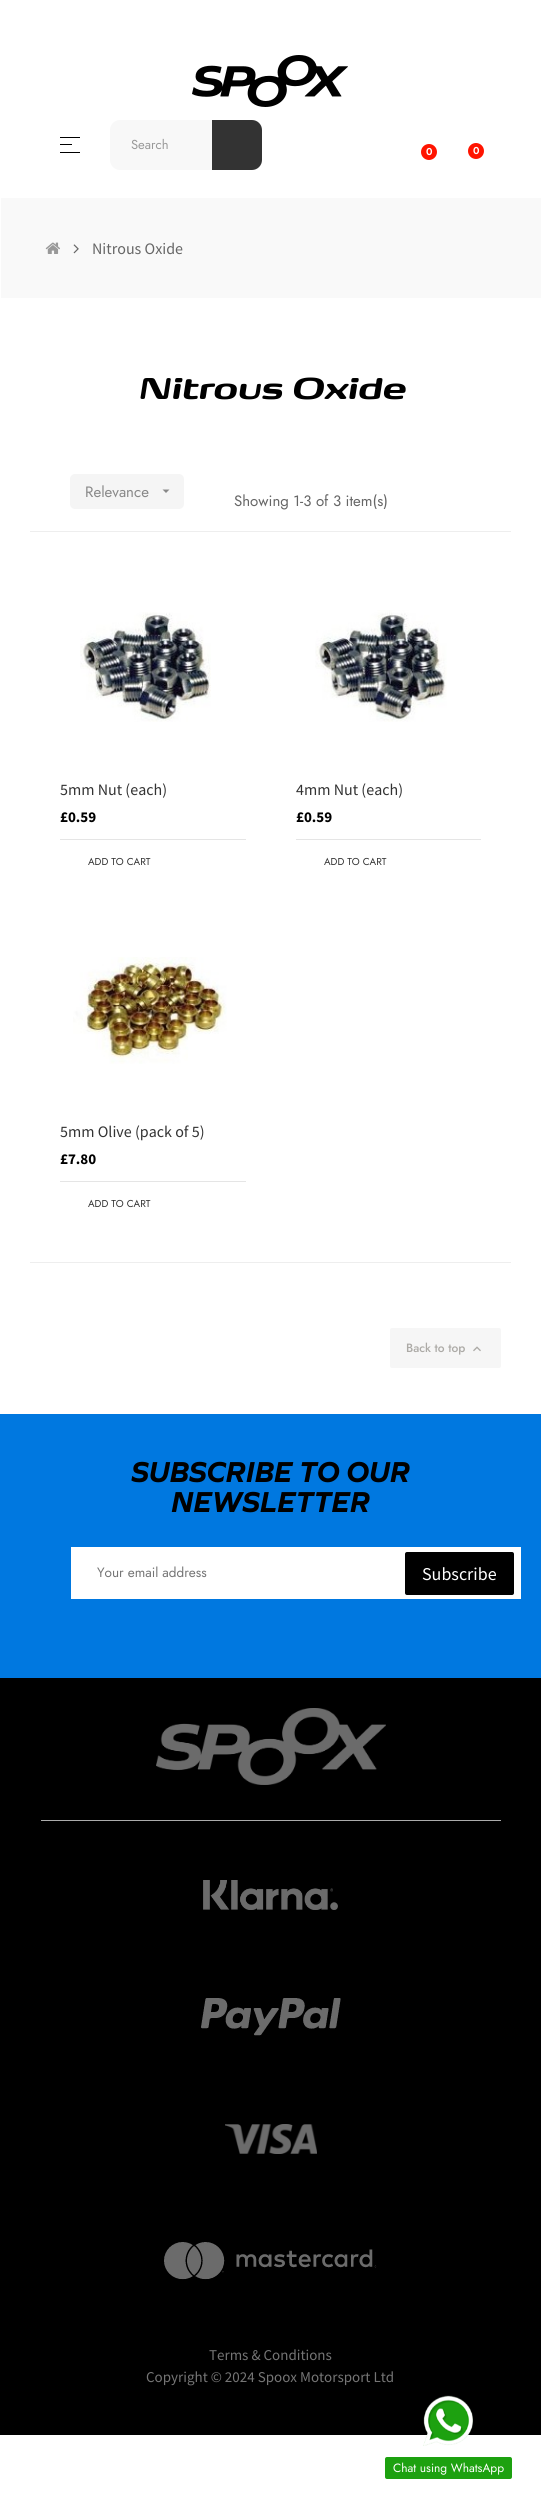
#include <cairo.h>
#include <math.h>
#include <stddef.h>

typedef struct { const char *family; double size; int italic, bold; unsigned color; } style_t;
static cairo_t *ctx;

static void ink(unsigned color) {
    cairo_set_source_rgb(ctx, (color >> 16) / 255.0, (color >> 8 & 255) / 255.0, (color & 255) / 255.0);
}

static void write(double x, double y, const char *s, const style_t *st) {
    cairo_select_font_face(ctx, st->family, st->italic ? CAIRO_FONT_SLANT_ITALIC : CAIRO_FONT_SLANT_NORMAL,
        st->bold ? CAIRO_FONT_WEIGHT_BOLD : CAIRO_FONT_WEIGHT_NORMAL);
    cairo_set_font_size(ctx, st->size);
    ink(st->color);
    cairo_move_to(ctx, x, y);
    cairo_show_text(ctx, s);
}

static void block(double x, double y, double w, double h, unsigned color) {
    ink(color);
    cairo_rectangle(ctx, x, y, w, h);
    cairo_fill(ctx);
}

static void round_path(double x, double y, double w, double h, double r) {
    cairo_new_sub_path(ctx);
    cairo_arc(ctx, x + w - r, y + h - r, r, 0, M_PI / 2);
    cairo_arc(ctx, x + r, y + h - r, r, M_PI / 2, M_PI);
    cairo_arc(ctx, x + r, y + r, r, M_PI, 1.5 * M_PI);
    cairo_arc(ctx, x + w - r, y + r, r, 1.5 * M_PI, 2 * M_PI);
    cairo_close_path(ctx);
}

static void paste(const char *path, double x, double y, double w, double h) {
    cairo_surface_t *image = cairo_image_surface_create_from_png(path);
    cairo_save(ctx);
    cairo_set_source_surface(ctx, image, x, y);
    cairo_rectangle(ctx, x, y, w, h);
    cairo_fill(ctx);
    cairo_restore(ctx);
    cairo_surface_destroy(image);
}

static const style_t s1 = {"Jost", 13, 0, 0, 0x999999};
static const style_t s2 = {"Jost SemiBold", 10, 0, 0, 0xffffff};
static const style_t s3 = {"Source Sans Pro", 16, 0, 0, 0x666666};
static const style_t s4 = {"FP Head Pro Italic", 36, 1, 1, 0x000000};
static const style_t s5 = {"Jost", 15, 0, 0, 0x888888};
static const style_t s6 = {"Jost", 15, 0, 0, 0x666666};
static const style_t s7 = {"Source Sans Pro", 16, 0, 0, 0x333333};
static const style_t s8 = {"Source Sans Pro", 15, 0, 1, 0x000000};
static const style_t s9 = {"Jost", 10, 0, 0, 0x333333};
static const style_t s10 = {"Jost Medium", 12, 0, 0, 0xacaaa6};
static const style_t s11 = {"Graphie", 30, 1, 1, 0x000000};
static const style_t s12 = {"Jost", 13.5, 0, 0, 0x757575};
static const style_t s13 = {"Source Sans Pro", 18, 0, 0, 0xffffff};
static const style_t s14 = {"Source Sans Pro", 15, 0, 0, 0x757575};
static const style_t s15 = {"Jost", 12, 0, 0, 0xffffff};

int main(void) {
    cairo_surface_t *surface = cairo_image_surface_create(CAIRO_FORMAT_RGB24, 541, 2507);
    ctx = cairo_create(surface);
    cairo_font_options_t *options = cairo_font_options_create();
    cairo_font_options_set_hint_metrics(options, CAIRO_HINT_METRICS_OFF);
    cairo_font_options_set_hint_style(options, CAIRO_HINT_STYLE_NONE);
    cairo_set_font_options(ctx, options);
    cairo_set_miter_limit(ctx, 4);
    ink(0xffffff);
    cairo_paint(ctx);
    paste("pic1.png", 192, 55, 156, 52);
    block(60, 137, 20, 1, 0x000000);
    block(60, 152, 20, 1, 0x000000);
    block(60, 144, 12, 1, 0x000000);
    ink(0xf8f8f8);
    round_path(110, 120, 150, 50, 10);
    cairo_fill(ctx);
    write(131, 149, "Search", &s1);
    ink(0x333333);
    cairo_new_path(ctx);
    cairo_move_to(ctx, 212, 120);
    cairo_line_to(ctx, 252, 120);
    cairo_curve_to(ctx, 257.5, 120, 262, 124.5, 262, 130);
    cairo_line_to(ctx, 262, 160);
    cairo_curve_to(ctx, 262, 165.5, 257.5, 170, 252, 170);
    cairo_line_to(ctx, 212, 170);
    cairo_close_path(ctx);
    cairo_fill(ctx);
    ink(0xff1400);
    cairo_arc(ctx, 429, 152, 8, 0, 2 * M_PI);
    cairo_fill(ctx);
    write(426, 155, "0", &s2);
    ink(0xff1400);
    cairo_new_path(ctx);
    cairo_arc(ctx, 476, 151, 8, 0, 2 * M_PI);
    cairo_fill(ctx);
    write(473, 154, "0", &s2);
    block(1, 198, 540, 100, 0xf9f9f9);
    paste("pic2.png", 45, 242, 15, 12);
    paste("pic3.png", 73, 244, 6, 10);
    write(92, 254, "Nitrous Oxide", &s3);
    write(137, 399, "Nitrous Oxide", &s4);
    block(30, 531, 481, 1, 0xeeeeee);
    ink(0xf5f5f5);
    round_path(70, 474, 114, 35, 5);
    cairo_fill(ctx);
    write(85, 497, "Relevance", &s5);
    cairo_new_path(ctx);
    cairo_move_to(ctx, 162.5, 489.5);
    cairo_line_to(ctx, 169.5, 489.5);
    cairo_line_to(ctx, 166, 493);
    cairo_close_path(ctx);
    cairo_fill(ctx);
    write(234, 506, "Showing 1-3 of 3 item(s)", &s6);
    paste("pic4.png", 80, 612, 131, 110);
    write(60, 795, "5mm Nut (each)", &s7);
    write(60, 822, "£0.59", &s8);
    block(60, 839, 186, 1, 0xe5e5e5);
    write(88, 865, "ADD TO CART", &s9);
    paste("pic5.png", 315, 610, 132, 112);
    write(296, 795, "4mm Nut (each)", &s7);
    write(296, 822, "£0.59", &s8);
    block(296, 839, 185, 1, 0xe5e5e5);
    write(324, 865, "ADD TO CART", &s9);
    paste("pic6.png", 73, 957, 154, 107);
    write(60, 1137, "5mm Olive (pack of 5)", &s7);
    write(60, 1164, "£7.80", &s8);
    block(60, 1181, 186, 1, 0xe5e5e5);
    write(88, 1207, "ADD TO CART", &s9);
    block(30, 1262, 481, 1, 0xeeeeee);
    ink(0xf6f6f6);
    round_path(390, 1328, 111, 40, 2);
    cairo_fill(ctx);
    write(406, 1352, "Back to top", &s10);
    paste("pic7.png", 473, 1346, 8, 6);
    block(0, 1414, 541, 264, 0x0078e0);
    write(131, 1482, "SUBSCRIBE TO OUR", &s11);
    write(171, 1512, "NEWSLETTER", &s11);
    block(71, 1547, 450, 52, 0xffffff);
    write(97, 1577, "Your email address", &s12);
    ink(0x000000);
    round_path(406, 1553, 107, 41, 1);
    cairo_fill_preserve(ctx);
    cairo_stroke(ctx);
    write(422, 1580, "Subscribe", &s13);
    block(0, 1678, 541, 757, 0x000000);
    paste("pic8.png", 156, 1708, 230, 77);
    block(41, 1820, 460, 1, 0xacacac);
    paste("pic9.png", 203, 1880, 135, 30);
    paste("pic10.png", 201, 1998, 140, 38);
    paste("pic11.png", 225, 2124, 92, 30);
    paste("pic12.png", 164, 2242, 213, 38);
    write(209, 2360, "Terms & Conditions", &s14);
    write(146, 2382, "Copyright © 2024 Spoox Motorsport Ltd", &s14);
    paste("pic13.png", 423, 2395, 50, 51);
    ink(0x1da110);
    round_path(385, 2457, 127, 22, 2);
    cairo_fill(ctx);
    write(393, 2472, "Chat using WhatsApp", &s15);
    cairo_surface_write_to_png(surface, "screenshot.png");
    cairo_font_options_destroy(options);
    cairo_destroy(ctx);
    cairo_surface_destroy(surface);
    return 0;
}
